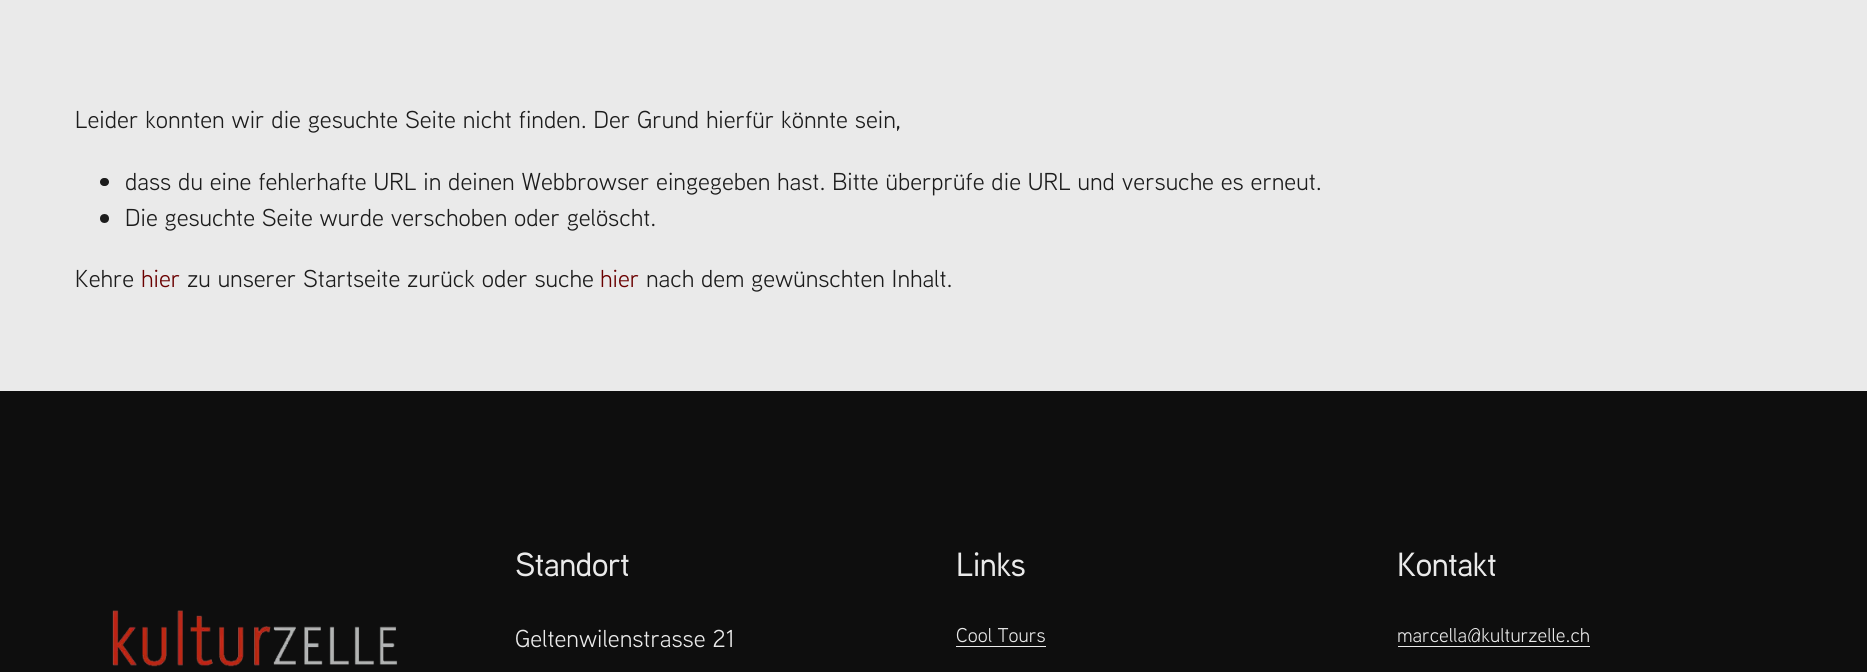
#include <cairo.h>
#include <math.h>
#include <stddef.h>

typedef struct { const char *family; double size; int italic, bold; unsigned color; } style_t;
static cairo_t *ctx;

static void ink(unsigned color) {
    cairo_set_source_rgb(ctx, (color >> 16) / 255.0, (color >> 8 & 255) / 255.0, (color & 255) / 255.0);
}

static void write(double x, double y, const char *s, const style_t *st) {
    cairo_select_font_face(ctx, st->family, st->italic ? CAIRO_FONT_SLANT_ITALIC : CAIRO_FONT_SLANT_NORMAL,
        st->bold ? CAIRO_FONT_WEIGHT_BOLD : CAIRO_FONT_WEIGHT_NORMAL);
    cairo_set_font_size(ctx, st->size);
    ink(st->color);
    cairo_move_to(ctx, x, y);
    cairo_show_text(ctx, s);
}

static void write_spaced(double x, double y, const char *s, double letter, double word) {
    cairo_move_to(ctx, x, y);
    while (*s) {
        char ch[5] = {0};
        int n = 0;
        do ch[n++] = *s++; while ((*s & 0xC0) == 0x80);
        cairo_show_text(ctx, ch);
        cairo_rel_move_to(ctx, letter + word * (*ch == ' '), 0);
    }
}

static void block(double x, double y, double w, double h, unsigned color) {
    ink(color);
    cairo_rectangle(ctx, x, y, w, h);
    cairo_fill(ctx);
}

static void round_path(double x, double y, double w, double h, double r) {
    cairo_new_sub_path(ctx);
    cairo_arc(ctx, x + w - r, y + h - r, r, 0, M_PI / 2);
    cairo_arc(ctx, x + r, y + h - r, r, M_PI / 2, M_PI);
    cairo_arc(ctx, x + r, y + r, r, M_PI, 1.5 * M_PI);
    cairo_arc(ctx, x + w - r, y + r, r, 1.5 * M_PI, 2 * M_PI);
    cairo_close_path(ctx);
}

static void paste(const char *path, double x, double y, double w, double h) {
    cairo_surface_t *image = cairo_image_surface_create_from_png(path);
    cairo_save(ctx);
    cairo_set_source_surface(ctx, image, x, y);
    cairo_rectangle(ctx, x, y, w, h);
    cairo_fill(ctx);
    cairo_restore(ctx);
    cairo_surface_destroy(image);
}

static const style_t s1 = {"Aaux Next", 24.5, 0, 0, 0x1c1c1c};
static const style_t s2 = {"Aaux Next", 24.5, 0, 0, 0x6a0000};
static const style_t s3 = {"Aaux Next", 24.5, 0, 0, 0xeaeaea};
static const style_t s4 = {"Aaux Next", 20, 0, 0, 0xeaeaea};

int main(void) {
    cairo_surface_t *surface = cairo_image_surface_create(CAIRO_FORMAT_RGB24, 1867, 672);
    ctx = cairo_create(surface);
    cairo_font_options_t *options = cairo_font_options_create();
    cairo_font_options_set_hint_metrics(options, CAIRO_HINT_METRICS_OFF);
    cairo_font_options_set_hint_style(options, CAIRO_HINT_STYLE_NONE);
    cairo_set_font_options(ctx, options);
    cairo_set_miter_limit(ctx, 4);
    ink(0xeaeaea);
    cairo_paint(ctx);
    write(75, 128, "Leider konnten wir die gesuchte Seite nicht finden. Der Grund hierfür könnte sein,", &s1);
    round_path(100, 178, 9, 8, 4);
    cairo_fill(ctx);
    write(125, 190, "dass du eine fehlerhafte URL in deinen Webbrowser eingegeben hast. Bitte überprüfe die URL und versuche es erneut.", &s1);
    cairo_new_path(ctx);
    cairo_arc(ctx, 104.5, 218.5, 4.5, 0, 2 * M_PI);
    cairo_fill(ctx);
    write(125, 226, "Die gesuchte Seite wurde verschoben oder gelöscht.", &s1);
    write(75, 287, "Kehre", &s1);
    write(141, 287, "hier", &s2);
    write(187, 287, "zu unserer Startseite zurück oder suche", &s1);
    write(600, 287, "hier", &s2);
    write(646, 287, "nach dem gewünschten Inhalt.", &s1);
    block(0, 391, 1867, 281, 0x0e0e0e);
    cairo_select_font_face(ctx, "Aaux Next Medium", CAIRO_FONT_SLANT_NORMAL, CAIRO_FONT_WEIGHT_NORMAL);
    cairo_set_font_size(ctx, 33.5);
    ink(0xeaeaea);
    write_spaced(515, 576, "Standort", -0.75, 0);
    write_spaced(956, 576, "Links", -0.75, 0);
    write_spaced(1397, 576, "Kontakt", -0.75, 0);
    paste("pic1.png", 112, 610, 286, 57);
    write(515, 647, "Geltenwilenstrasse 21", &s3);
    write(956, 642, "Cool Tours", &s4);
    block(956, 646, 90, 1, 0xeaeaea);
    write(1397, 642, "marcella@kulturzelle.ch", &s4);
    block(1398, 646, 192, 1, 0xeaeaea);
    cairo_surface_write_to_png(surface, "screenshot.png");
    cairo_font_options_destroy(options);
    cairo_destroy(ctx);
    cairo_surface_destroy(surface);
    return 0;
}
